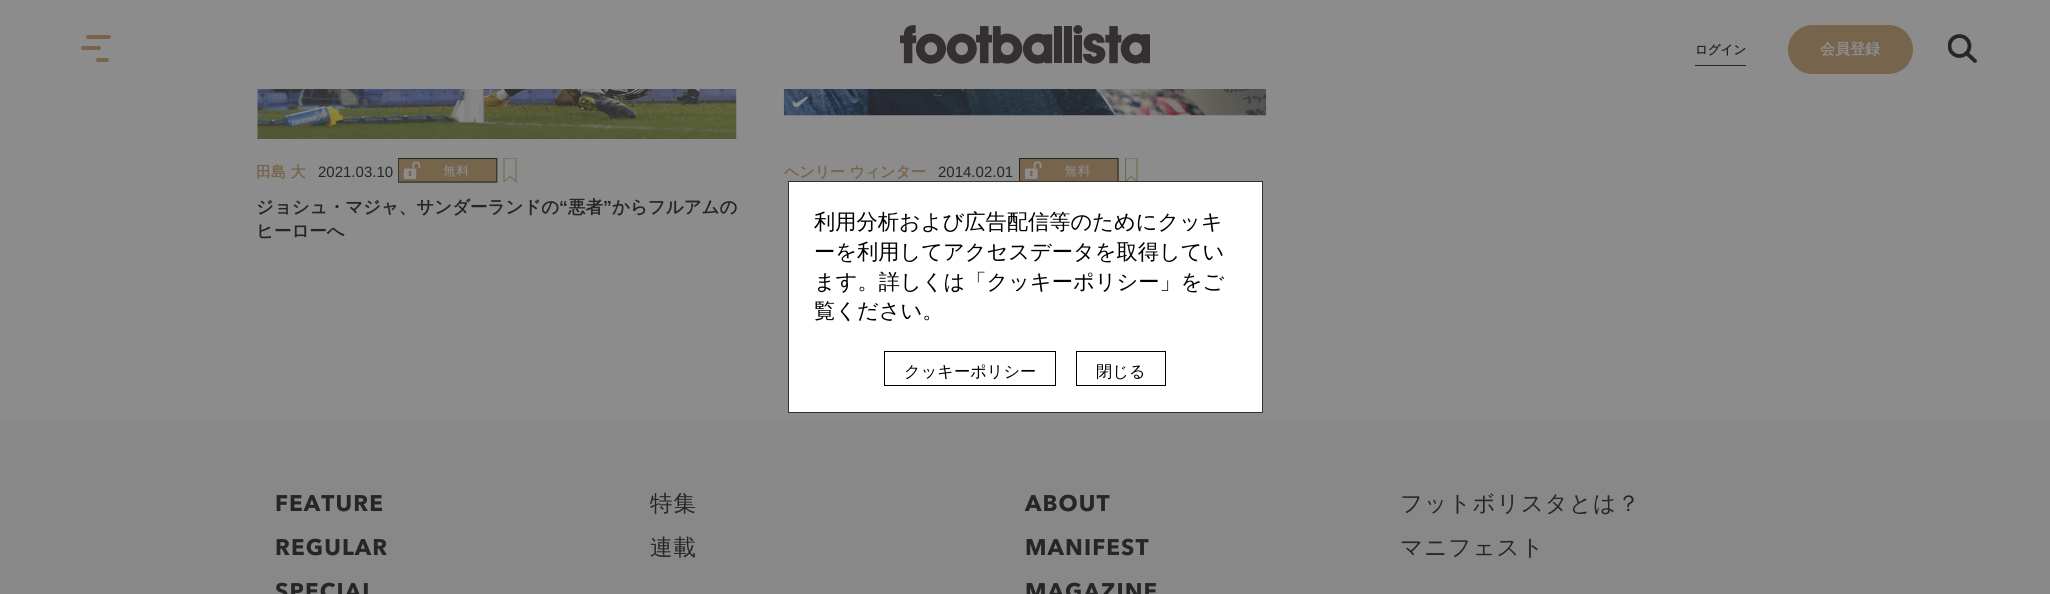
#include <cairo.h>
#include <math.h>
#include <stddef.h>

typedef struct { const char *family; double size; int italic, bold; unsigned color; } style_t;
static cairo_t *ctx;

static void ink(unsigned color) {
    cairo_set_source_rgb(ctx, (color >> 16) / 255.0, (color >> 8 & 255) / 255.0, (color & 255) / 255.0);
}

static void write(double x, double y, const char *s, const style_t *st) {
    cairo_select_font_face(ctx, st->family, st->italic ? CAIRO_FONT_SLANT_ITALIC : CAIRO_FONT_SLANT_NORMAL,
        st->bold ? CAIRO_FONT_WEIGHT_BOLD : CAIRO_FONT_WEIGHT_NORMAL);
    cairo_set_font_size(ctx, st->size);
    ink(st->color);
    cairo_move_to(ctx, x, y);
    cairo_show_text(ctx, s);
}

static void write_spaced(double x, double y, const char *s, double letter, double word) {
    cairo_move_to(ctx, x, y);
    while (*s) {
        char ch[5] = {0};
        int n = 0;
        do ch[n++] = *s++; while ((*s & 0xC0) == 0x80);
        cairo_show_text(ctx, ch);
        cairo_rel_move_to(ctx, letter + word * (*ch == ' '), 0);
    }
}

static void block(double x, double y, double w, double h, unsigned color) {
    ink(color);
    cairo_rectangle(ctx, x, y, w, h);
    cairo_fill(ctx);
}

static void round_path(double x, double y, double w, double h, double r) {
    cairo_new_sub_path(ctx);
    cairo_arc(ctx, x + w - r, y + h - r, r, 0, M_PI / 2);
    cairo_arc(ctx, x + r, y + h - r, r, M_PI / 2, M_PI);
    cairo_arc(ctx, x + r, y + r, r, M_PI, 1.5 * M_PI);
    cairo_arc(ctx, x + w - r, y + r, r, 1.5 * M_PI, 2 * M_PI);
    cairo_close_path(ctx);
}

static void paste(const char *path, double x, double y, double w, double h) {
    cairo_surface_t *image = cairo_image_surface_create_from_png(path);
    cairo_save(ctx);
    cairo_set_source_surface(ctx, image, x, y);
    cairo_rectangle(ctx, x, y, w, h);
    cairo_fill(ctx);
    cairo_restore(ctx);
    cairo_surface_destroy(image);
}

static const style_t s1 = {"WenQuanYi Zen Hei", 12.5, 0, 1, 0x262626};
static const style_t s2 = {"WenQuanYi Zen Hei", 15, 0, 1, 0x8c8c8c};
static const style_t s3 = {"WenQuanYi Zen Hei", 15, 0, 1, 0x76654c};
static const style_t s4 = {"Liberation Sans", 15, 0, 0, 0x262626};
static const style_t s5 = {"WenQuanYi Zen Hei", 17.5, 0, 1, 0x262626};
static const style_t s6 = {"Liberation Sans", 17.5, 0, 1, 0x262626};
static const style_t s7 = {"WenQuanYi Zen Hei Medium", 21.25, 0, 0, 0x000000};
static const style_t s8 = {"WenQuanYi Zen Hei Medium", 16.25, 0, 0, 0x000000};

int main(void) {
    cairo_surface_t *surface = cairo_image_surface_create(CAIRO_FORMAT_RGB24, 2050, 594);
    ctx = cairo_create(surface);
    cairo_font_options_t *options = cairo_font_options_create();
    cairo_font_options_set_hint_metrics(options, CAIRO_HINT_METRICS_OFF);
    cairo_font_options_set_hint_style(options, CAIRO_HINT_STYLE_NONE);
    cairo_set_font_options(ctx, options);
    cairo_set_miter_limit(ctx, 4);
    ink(0x8c8c8c);
    cairo_paint(ctx);
    ink(0x76654c);
    round_path(86, 35, 25, 4, 2);
    cairo_fill(ctx);
    round_path(81, 46, 20, 4, 2);
    cairo_fill(ctx);
    round_path(96, 58, 13, 4, 2);
    cairo_fill(ctx);
    paste("pic1.png", 900, 25, 250, 39);
    block(1695, 65, 51, 1, 0x262626);
    write(1695, 54, "ログイン", &s1);
    ink(0x76654c);
    round_path(1788.5, 25.5, 124, 48, 24);
    cairo_fill_preserve(ctx);
    cairo_set_line_width(ctx, 1);
    cairo_stroke(ctx);
    write(1820, 54, "会員登録", &s2);
    cairo_save(ctx);
    cairo_rectangle(ctx, 1948, 34, 30, 29);
    cairo_clip(ctx);
    cairo_arc(ctx, 1959.5, 46, 10, 0, 2 * M_PI);
    ink(0x262626);
    cairo_set_line_width(ctx, 3.8);
    cairo_stroke(ctx);
    cairo_restore(ctx);
    cairo_new_path(ctx);
    cairo_move_to(ctx, 1967, 53.5);
    cairo_line_to(ctx, 1975, 61);
    ink(0x262626);
    cairo_set_line_width(ctx, 3.8);
    cairo_set_line_cap(ctx, CAIRO_LINE_CAP_ROUND);
    cairo_stroke(ctx);
    paste("pic2.png", 257, 89, 480, 50);
    write(256, 177, "田島 大", &s3);
    write(318, 177, "2021.03.10", &s4);
    paste("pic3.png", 398, 158, 100, 25);
    cairo_save(ctx);
    cairo_rectangle(ctx, 499, 158, 22, 25);
    cairo_clip(ctx);
    cairo_new_path(ctx);
    cairo_move_to(ctx, 516, 181.5);
    cairo_line_to(ctx, 510, 176.5);
    cairo_line_to(ctx, 504, 181.5);
    cairo_line_to(ctx, 504, 158);
    cairo_line_to(ctx, 516, 158);
    cairo_close_path(ctx);
    ink(0x76654c);
    cairo_set_line_width(ctx, 1);
    cairo_set_line_cap(ctx, CAIRO_LINE_CAP_BUTT);
    cairo_stroke(ctx);
    cairo_restore(ctx);
    write(256, 213, "ジョシュ・マジャ、サンダーランドの", &s5);
    write(559, 213, "“", &s6);
    write(568, 213, "悪者", &s5);
    write(603, 213, "”", &s6);
    write(612, 213, "からフルアムの", &s5);
    write(256, 237, "ヒーローへ", &s5);
    paste("pic4.png", 783, 89, 484, 27);
    write(784, 177, "ヘンリー ウィンター", &s3);
    write(938, 177, "2014.02.01", &s4);
    paste("pic5.png", 1019, 158, 100, 23);
    cairo_save(ctx);
    cairo_rectangle(ctx, 1120, 158, 23, 25);
    cairo_clip(ctx);
    cairo_new_path(ctx);
    cairo_move_to(ctx, 1137, 181.5);
    cairo_line_to(ctx, 1131, 176.5);
    cairo_line_to(ctx, 1125.5, 181.5);
    cairo_line_to(ctx, 1125.5, 158);
    cairo_line_to(ctx, 1137, 158);
    cairo_close_path(ctx);
    ink(0x76654c);
    cairo_set_line_width(ctx, 1);
    cairo_set_line_cap(ctx, CAIRO_LINE_CAP_BUTT);
    cairo_stroke(ctx);
    cairo_restore(ctx);
    ink(0xffffff);
    cairo_rectangle(ctx, 788.5, 181.5, 474, 231);
    cairo_fill_preserve(ctx);
    ink(0x333333);
    cairo_set_line_width(ctx, 1);
    cairo_set_line_cap(ctx, CAIRO_LINE_CAP_BUTT);
    cairo_stroke(ctx);
    write(814, 229, "利用分析および広告配信等のためにクッキ", &s7);
    write(814, 259, "ーを利用してアクセスデータを取得してい", &s7);
    write(814, 289, "ます。詳しくは「クッキーポリシー」をご", &s7);
    write(814, 318, "覧ください。", &s7);
    cairo_rectangle(ctx, 884.5, 351.5, 171, 34);
    cairo_stroke(ctx);
    write(904, 377, "クッキーポリシー", &s8);
    cairo_rectangle(ctx, 1076.5, 351.5, 89, 34);
    cairo_stroke(ctx);
    write(1096, 377, "閉じる", &s8);
    block(0, 421, 2050, 173, 0x888888);
    cairo_select_font_face(ctx, "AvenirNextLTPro", CAIRO_FONT_SLANT_NORMAL, CAIRO_FONT_WEIGHT_NORMAL);
    cairo_set_font_size(ctx, 22.5);
    ink(0x262626);
    write_spaced(275, 511, "FEATURE", 1.1, 0);
    cairo_select_font_face(ctx, "WenQuanYi Zen Hei Medium", CAIRO_FONT_SLANT_NORMAL, CAIRO_FONT_WEIGHT_NORMAL);
    write_spaced(650, 511, "特集", 1.1, 0);
    cairo_select_font_face(ctx, "AvenirNextLTPro", CAIRO_FONT_SLANT_NORMAL, CAIRO_FONT_WEIGHT_NORMAL);
    write_spaced(275, 555, "REGULAR", 1.1, 0);
    cairo_select_font_face(ctx, "WenQuanYi Zen Hei Medium", CAIRO_FONT_SLANT_NORMAL, CAIRO_FONT_WEIGHT_NORMAL);
    write_spaced(650, 555, "連載", 1.1, 0);
    cairo_select_font_face(ctx, "AvenirNextLTPro", CAIRO_FONT_SLANT_NORMAL, CAIRO_FONT_WEIGHT_NORMAL);
    write_spaced(275, 599, "SPECIAL", 1.1, 0);
    write_spaced(1025, 511, "ABOUT", 1.1, 0);
    cairo_select_font_face(ctx, "WenQuanYi Zen Hei Medium", CAIRO_FONT_SLANT_NORMAL, CAIRO_FONT_WEIGHT_NORMAL);
    write_spaced(1400, 511, "フットボリスタとは？", 1.1, 0);
    cairo_select_font_face(ctx, "AvenirNextLTPro", CAIRO_FONT_SLANT_NORMAL, CAIRO_FONT_WEIGHT_NORMAL);
    write_spaced(1025, 555, "MANIFEST", 1.1, 0);
    cairo_select_font_face(ctx, "WenQuanYi Zen Hei Medium", CAIRO_FONT_SLANT_NORMAL, CAIRO_FONT_WEIGHT_NORMAL);
    write_spaced(1400, 555, "マニフェスト", 1.1, 0);
    cairo_select_font_face(ctx, "AvenirNextLTPro", CAIRO_FONT_SLANT_NORMAL, CAIRO_FONT_WEIGHT_NORMAL);
    write_spaced(1025, 599, "MAGAZINE", 1.1, 0);
    cairo_surface_write_to_png(surface, "screenshot.png");
    cairo_font_options_destroy(options);
    cairo_destroy(ctx);
    cairo_surface_destroy(surface);
    return 0;
}
